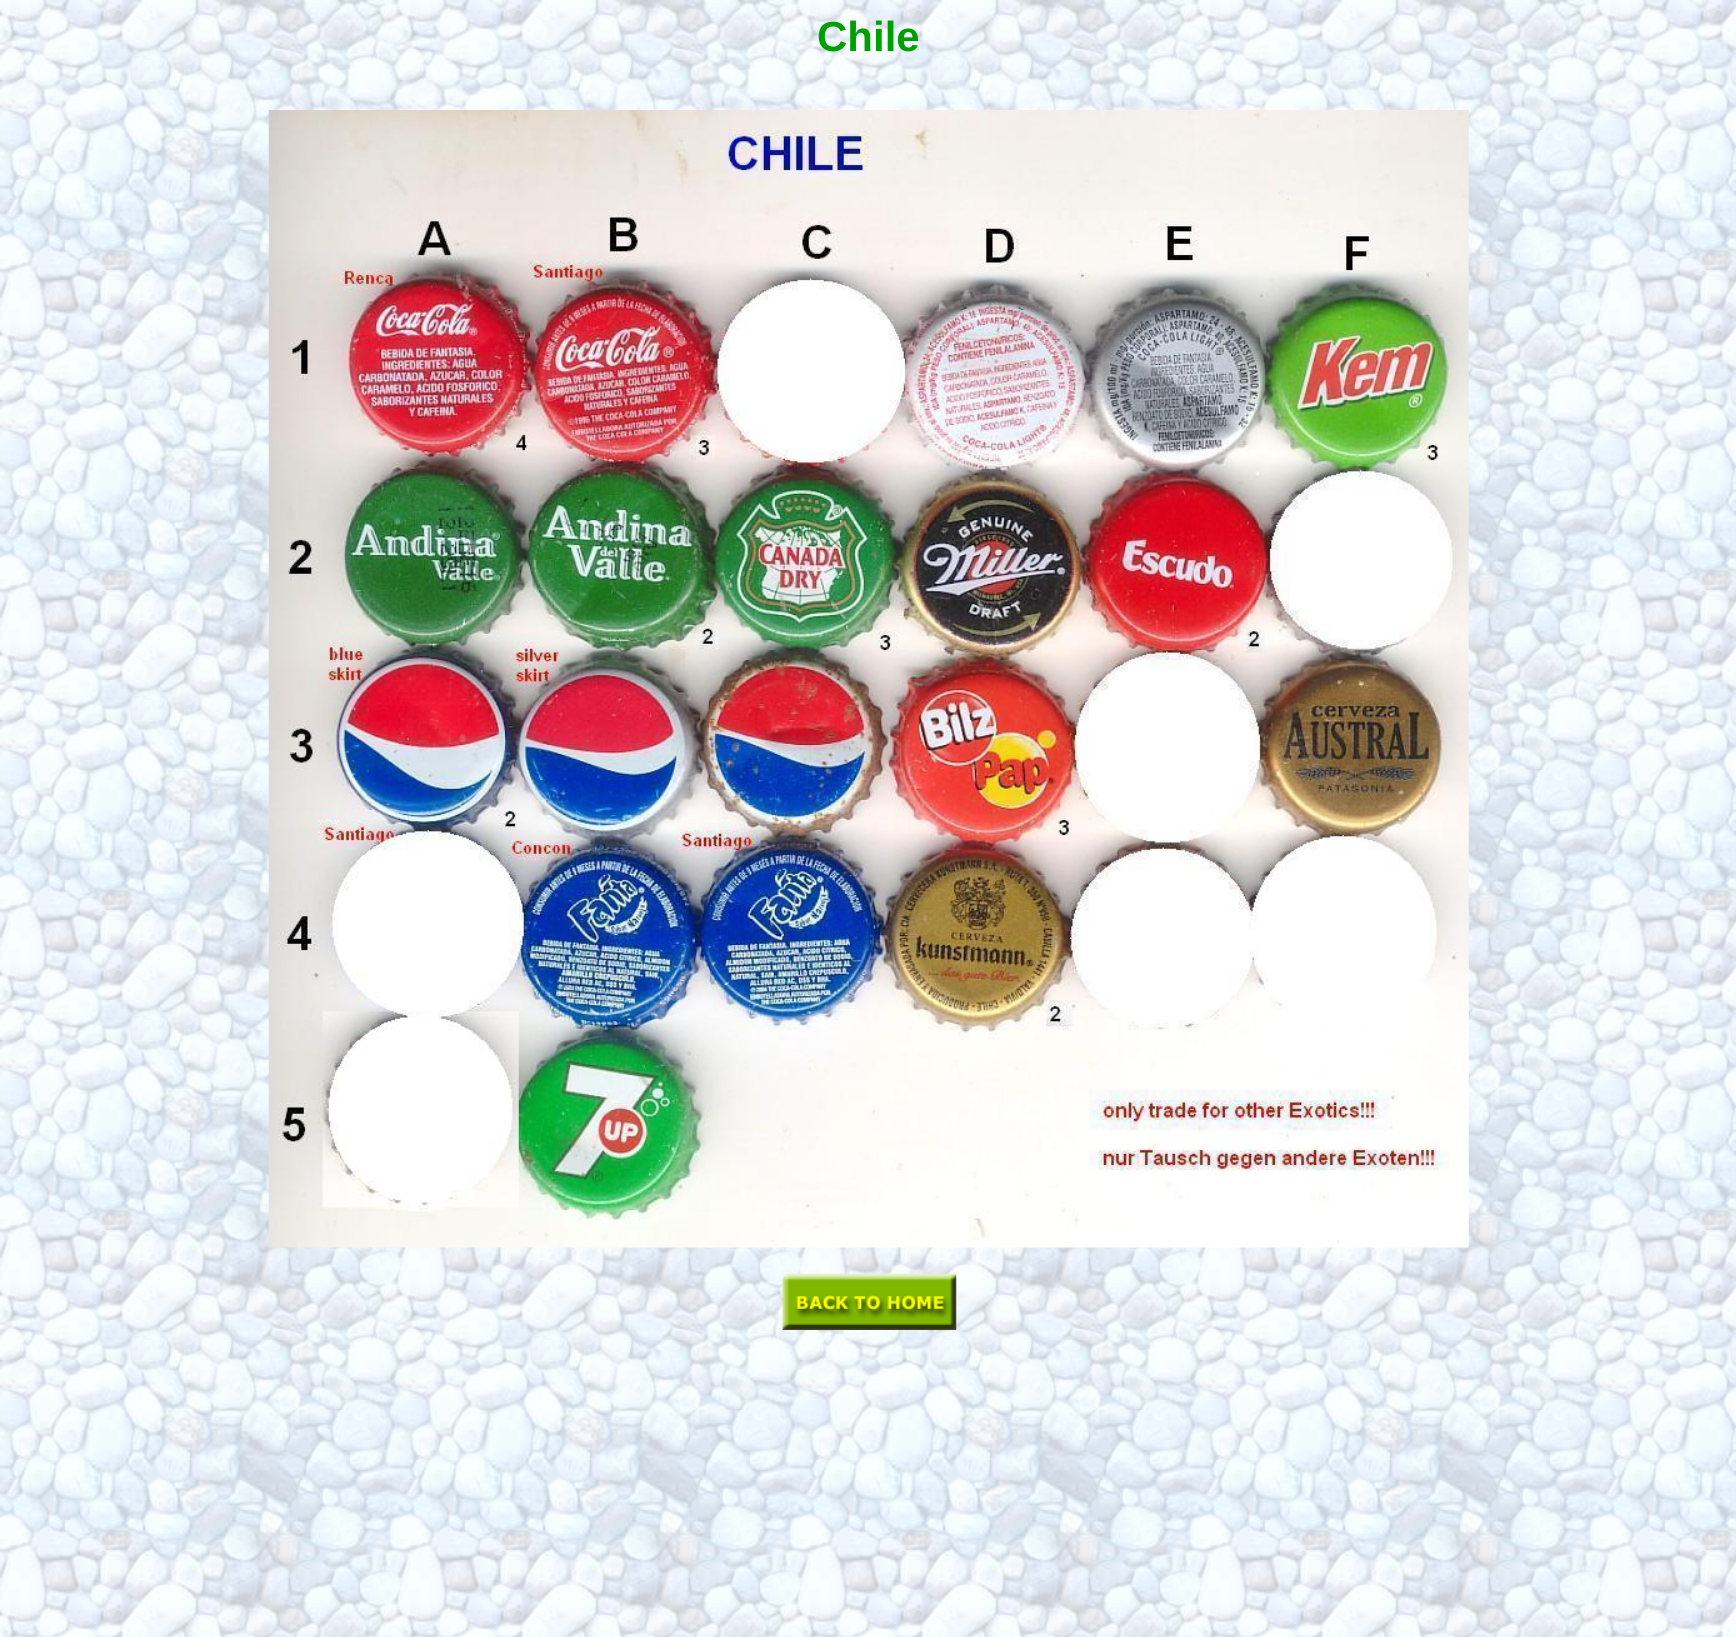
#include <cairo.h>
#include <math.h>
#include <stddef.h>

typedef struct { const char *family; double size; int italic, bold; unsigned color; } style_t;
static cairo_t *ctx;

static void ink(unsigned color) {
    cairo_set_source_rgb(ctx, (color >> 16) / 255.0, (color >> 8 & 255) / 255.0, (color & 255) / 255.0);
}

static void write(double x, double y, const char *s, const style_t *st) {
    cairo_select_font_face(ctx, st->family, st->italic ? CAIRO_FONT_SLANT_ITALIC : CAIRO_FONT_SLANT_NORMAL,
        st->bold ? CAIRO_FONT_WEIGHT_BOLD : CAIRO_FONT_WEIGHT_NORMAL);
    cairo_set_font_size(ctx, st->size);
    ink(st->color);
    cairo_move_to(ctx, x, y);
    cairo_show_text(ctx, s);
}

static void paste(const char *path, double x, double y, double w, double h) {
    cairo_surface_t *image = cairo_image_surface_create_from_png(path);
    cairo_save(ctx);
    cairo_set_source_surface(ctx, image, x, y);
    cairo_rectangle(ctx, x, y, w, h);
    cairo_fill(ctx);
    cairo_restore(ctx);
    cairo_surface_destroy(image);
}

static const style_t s1 = {"Liberation Sans", 42, 0, 1, 0x009f00};

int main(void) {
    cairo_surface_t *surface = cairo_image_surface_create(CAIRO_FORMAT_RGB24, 1736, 1637);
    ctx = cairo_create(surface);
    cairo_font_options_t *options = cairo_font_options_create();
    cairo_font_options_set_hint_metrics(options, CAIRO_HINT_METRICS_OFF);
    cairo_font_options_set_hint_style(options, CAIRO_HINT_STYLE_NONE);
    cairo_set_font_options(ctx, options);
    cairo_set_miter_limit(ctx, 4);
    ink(0xffffff);
    cairo_paint(ctx);
    paste("pic1.png", 0, 0, 1736, 1637);
    write(817, 51, "Chile", &s1);
    paste("pic2.png", 268, 110, 1201, 1138);
    paste("pic3.png", 782, 1273, 175, 57);
    cairo_surface_write_to_png(surface, "screenshot.png");
    cairo_font_options_destroy(options);
    cairo_destroy(ctx);
    cairo_surface_destroy(surface);
    return 0;
}
